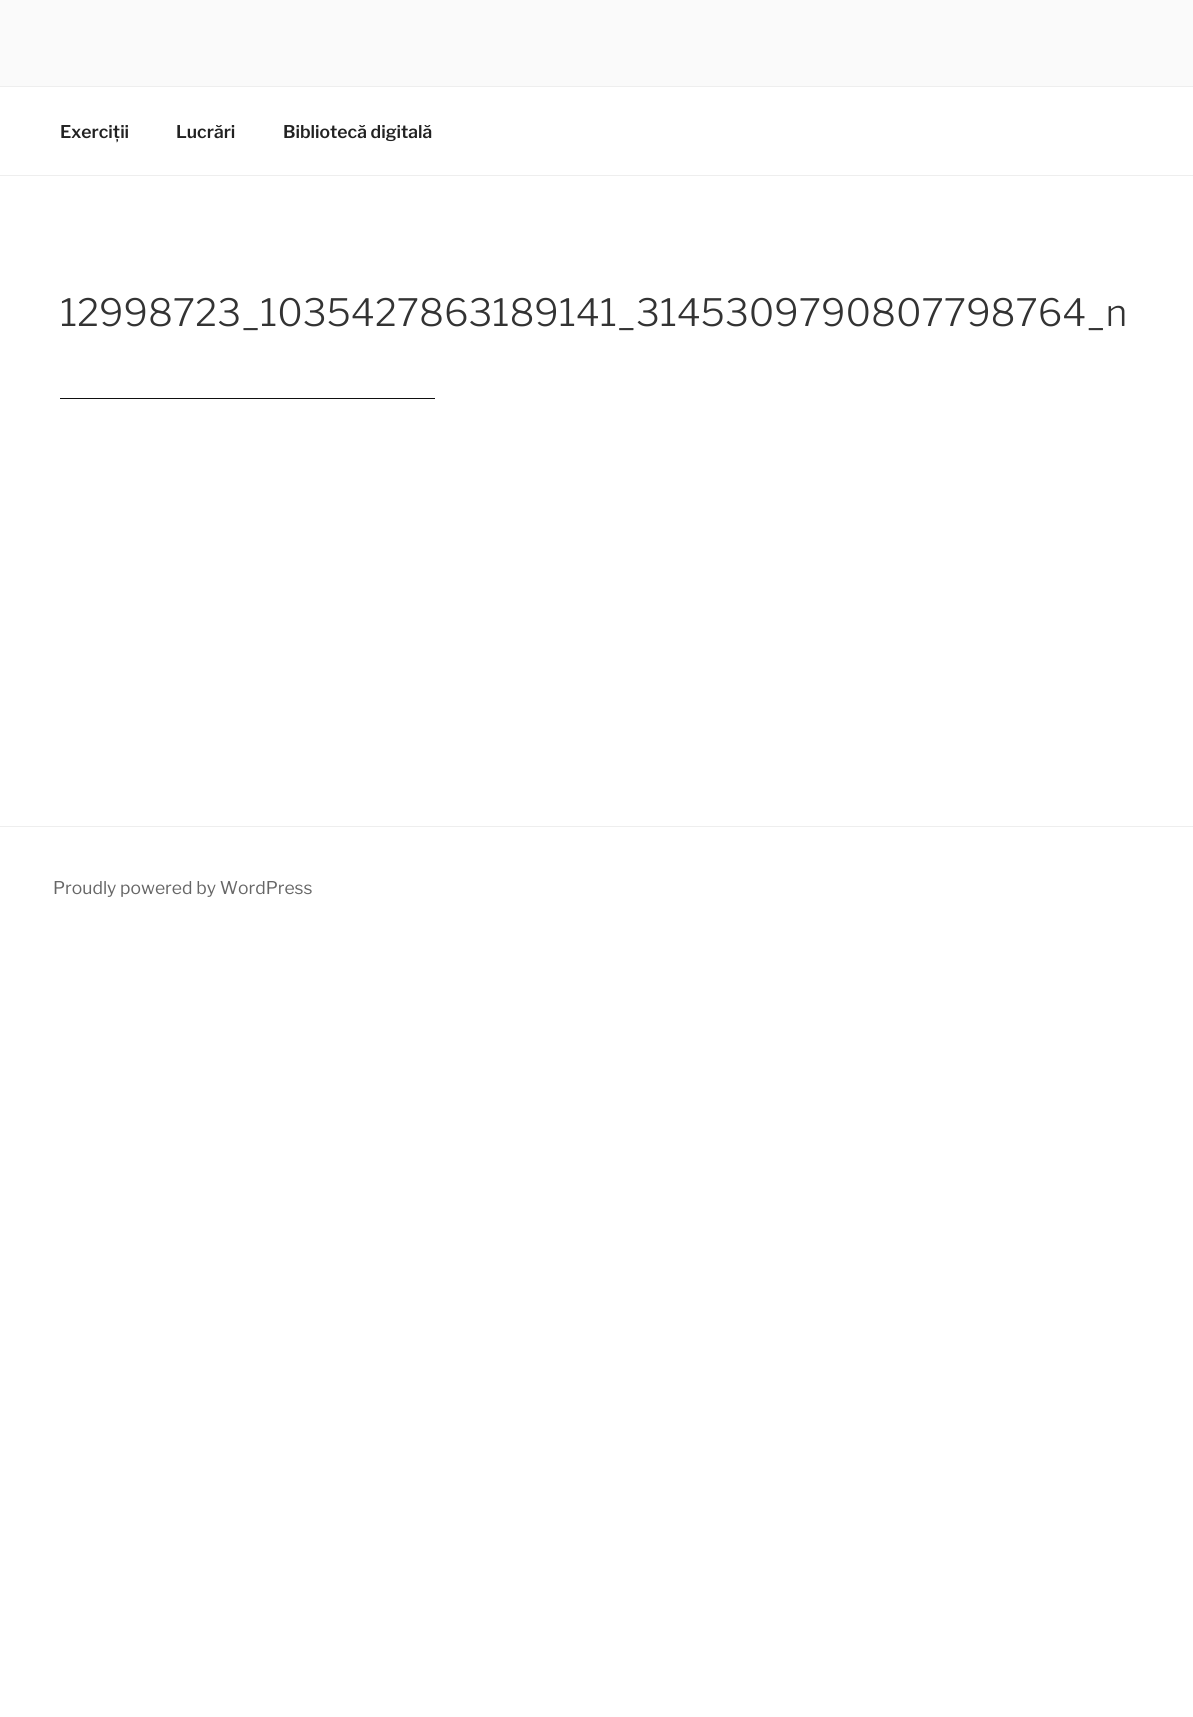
#include <cairo.h>
#include <math.h>
#include <stddef.h>

typedef struct { const char *family; double size; int italic, bold; unsigned color; } style_t;
static cairo_t *ctx;

static void ink(unsigned color) {
    cairo_set_source_rgb(ctx, (color >> 16) / 255.0, (color >> 8 & 255) / 255.0, (color & 255) / 255.0);
}

static void write(double x, double y, const char *s, const style_t *st) {
    cairo_select_font_face(ctx, st->family, st->italic ? CAIRO_FONT_SLANT_ITALIC : CAIRO_FONT_SLANT_NORMAL,
        st->bold ? CAIRO_FONT_WEIGHT_BOLD : CAIRO_FONT_WEIGHT_NORMAL);
    cairo_set_font_size(ctx, st->size);
    ink(st->color);
    cairo_move_to(ctx, x, y);
    cairo_show_text(ctx, s);
}

static void block(double x, double y, double w, double h, unsigned color) {
    ink(color);
    cairo_rectangle(ctx, x, y, w, h);
    cairo_fill(ctx);
}

static const style_t s1 = {"Libre Franklin SemiBold", 17.5, 0, 0, 0x222222};
static const style_t s2 = {"Libre Franklin Light", 37.5, 0, 0, 0x333333};
static const style_t s3 = {"Libre Franklin", 17.5, 0, 0, 0x666666};

int main(void) {
    cairo_surface_t *surface = cairo_image_surface_create(CAIRO_FORMAT_RGB24, 1193, 1717);
    ctx = cairo_create(surface);
    cairo_font_options_t *options = cairo_font_options_create();
    cairo_font_options_set_hint_metrics(options, CAIRO_HINT_METRICS_OFF);
    cairo_font_options_set_hint_style(options, CAIRO_HINT_STYLE_NONE);
    cairo_set_font_options(ctx, options);
    cairo_set_miter_limit(ctx, 4);
    ink(0xffffff);
    cairo_paint(ctx);
    block(0, 0, 1193, 86, 0xfafafa);
    block(0, 86, 1193, 1, 0xeeeeee);
    block(0, 175, 1193, 1, 0xeeeeee);
    write(60, 138, "Exerciții", &s1);
    write(176, 138, "Lucrări", &s1);
    write(283, 138, "Bibliotecă digitală", &s1);
    write(60, 326, "12998723_1035427863189141_3145309790807798764_n", &s2);
    block(60, 398, 375, 1, 0x0f0f0f);
    block(0, 826, 1193, 1, 0xeeeeee);
    write(53, 894, "Proudly powered by WordPress", &s3);
    cairo_surface_write_to_png(surface, "screenshot.png");
    cairo_font_options_destroy(options);
    cairo_destroy(ctx);
    cairo_surface_destroy(surface);
    return 0;
}
